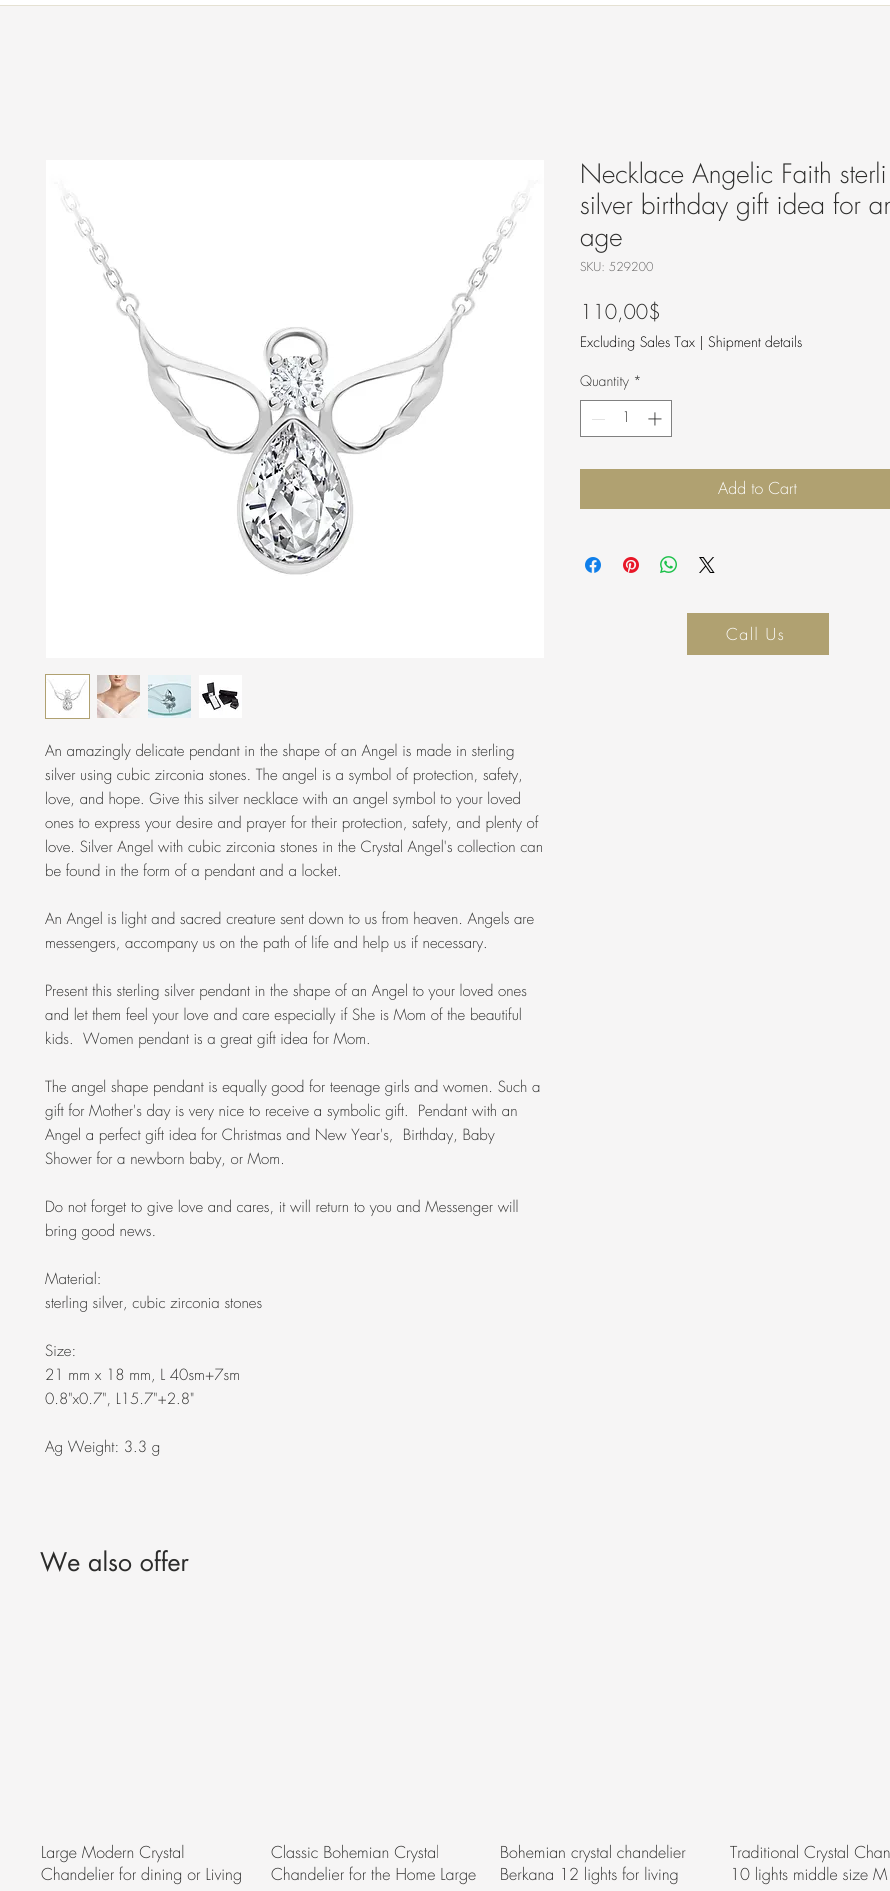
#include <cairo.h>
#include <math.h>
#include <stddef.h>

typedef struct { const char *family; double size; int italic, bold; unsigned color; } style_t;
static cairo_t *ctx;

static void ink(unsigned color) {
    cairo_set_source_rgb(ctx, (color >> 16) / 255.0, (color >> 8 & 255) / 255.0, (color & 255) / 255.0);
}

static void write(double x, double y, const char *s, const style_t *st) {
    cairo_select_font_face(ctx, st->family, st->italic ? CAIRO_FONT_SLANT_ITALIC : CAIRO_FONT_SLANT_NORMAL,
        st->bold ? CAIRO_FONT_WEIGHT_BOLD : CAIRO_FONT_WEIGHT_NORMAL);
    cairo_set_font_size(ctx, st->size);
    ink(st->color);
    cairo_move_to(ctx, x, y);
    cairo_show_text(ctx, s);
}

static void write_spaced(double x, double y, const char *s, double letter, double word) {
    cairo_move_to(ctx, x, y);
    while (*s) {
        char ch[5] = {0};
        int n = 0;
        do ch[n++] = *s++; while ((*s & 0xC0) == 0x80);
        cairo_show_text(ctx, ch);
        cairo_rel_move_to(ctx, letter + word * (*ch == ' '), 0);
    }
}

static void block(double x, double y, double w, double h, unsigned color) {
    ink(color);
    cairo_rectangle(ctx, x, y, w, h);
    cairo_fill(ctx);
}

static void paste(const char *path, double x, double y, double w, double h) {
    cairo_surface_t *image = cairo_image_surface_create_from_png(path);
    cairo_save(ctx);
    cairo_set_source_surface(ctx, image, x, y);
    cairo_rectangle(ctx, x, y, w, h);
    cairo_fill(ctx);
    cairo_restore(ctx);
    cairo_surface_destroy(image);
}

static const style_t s1 = {"futura Light", 26, 0, 0, 0x2c2c2b};
static const style_t s2 = {"futura Light", 12, 0, 0, 0x5e5d5d};
static const style_t s3 = {"futura Light", 20, 0, 0, 0x2c2c2b};
static const style_t s4 = {"futura Light", 14, 0, 0, 0x000000};
static const style_t s5 = {"futura Light", 14, 0, 0, 0x2c2c2b};
static const style_t s6 = {"futura Light", 16, 0, 0, 0xffffff};
static const style_t s7 = {"futura Light", 15, 0, 0, 0x2c2c2b};
static const style_t s8 = {"futura", 25, 0, 0, 0x2c2c2b};
static const style_t s9 = {"futura Light", 16, 0, 0, 0x2c2c2b};

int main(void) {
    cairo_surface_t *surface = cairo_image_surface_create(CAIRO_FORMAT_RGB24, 890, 1891);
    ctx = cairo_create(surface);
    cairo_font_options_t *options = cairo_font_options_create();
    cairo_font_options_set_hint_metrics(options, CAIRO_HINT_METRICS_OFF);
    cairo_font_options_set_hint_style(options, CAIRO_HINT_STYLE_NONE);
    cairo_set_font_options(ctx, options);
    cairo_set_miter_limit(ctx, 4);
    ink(0xf6f5f5);
    cairo_paint(ctx);
    block(0, 0, 890, 5, 0xffffff);
    block(0, 5, 890, 1, 0xe5e1d3);
    write(580, 183, "Necklace Angelic Faith sterli", &s1);
    write(580, 214, "silver birthday gift idea for an", &s1);
    write(580, 246, "age", &s1);
    write(580, 271, "SKU: 529200", &s2);
    write(580, 319, "110,00$", &s3);
    write(580, 347, "Excluding Sales Tax | Shipment details", &s4);
    write(580, 386, "Quantity", &s5);
    write(633, 386, "*", &s5);
    ink(0xffffff);
    cairo_rectangle(ctx, 580.5, 400.5, 91, 36);
    cairo_fill_preserve(ctx);
    ink(0x808080);
    cairo_set_line_width(ctx, 1);
    cairo_stroke(ctx);
    block(592, 419, 13, 1, 0xe3e3e3);
    write(622, 422, "1", &s5);
    paste("pic1.png", 648, 412, 14, 14);
    block(580, 469, 310, 40, 0xb0a171);
    write(718, 494, "Add to Cart", &s6);
    paste("pic2.png", 585, 557, 16, 16);
    paste("pic3.png", 623, 557, 16, 16);
    paste("pic4.png", 660, 556, 17, 17);
    paste("pic5.png", 699, 557, 16, 16);
    paste("pic6.png", 46, 160, 498, 498);
    cairo_rectangle(ctx, 45.5, 674.5, 44, 44);
    ink(0xb0a171);
    cairo_stroke(ctx);
    paste("pic7.png", 46, 675, 43, 43);
    paste("pic8.png", 97, 675, 43, 43);
    paste("pic9.png", 148, 675, 43, 43);
    paste("pic10.png", 199, 675, 43, 43);
    write(45, 756, "An amazingly delicate pendant in the shape of an Angel is made in sterling", &s7);
    write(45, 780, "silver using cubic zirconia stones. The angel is a symbol of protection, safety,", &s7);
    write(45, 804, "love, and hope. Give this silver necklace with an angel symbol to your loved", &s7);
    write(45, 828, "ones to express your desire and prayer for their protection, safety, and plenty of", &s7);
    write(45, 852, "love. Silver Angel with cubic zirconia stones in the Crystal Angel's collection can", &s7);
    write(45, 876, "be found in the form of a pendant and a locket.", &s7);
    write(45, 924, "An Angel is light and sacred creature sent down to us from heaven. Angels are", &s7);
    write(45, 948, "messengers, accompany us on the path of life and help us if necessary.", &s7);
    write(45, 996, "Present this sterling silver pendant in the shape of an Angel to your loved ones", &s7);
    write(45, 1020, "and let them feel your love and care especially if She is Mom of the beautiful", &s7);
    write(45, 1044, "kids.  Women pendant is a great gift idea for Mom.", &s7);
    write(45, 1092, "The angel shape pendant is equally good for teenage girls and women. Such a", &s7);
    write(45, 1116, "gift for Mother's day is very nice to receive a symbolic gift.  Pendant with an", &s7);
    write(45, 1140, "Angel a perfect gift idea for Christmas and New Year's,  Birthday, Baby", &s7);
    write(45, 1164, "Shower for a newborn baby, or Mom.", &s7);
    write(45, 1212, "Do not forget to give love and cares, it will return to you and Messenger will", &s7);
    write(45, 1236, "bring good news.", &s7);
    write(45, 1284, "Material:", &s7);
    write(45, 1308, "sterling silver, cubic zirconia stones", &s7);
    write(45, 1356, "Size:", &s7);
    write(45, 1380, "21 mm x 18 mm, L 40sm+7sm", &s7);
    write(45, 1404, "0.8\"x0.7\", L15.7\"+2.8\"", &s7);
    write(45, 1452, "Ag Weight: 3.3 g", &s7);
    block(687, 613, 142, 42, 0xb0a171);
    cairo_set_font_size(ctx, 16);
    ink(0xffffff);
    write_spaced(726, 640, "Call Us", 1.5, 0);
    write(40, 1571, "We also offer", &s8);
    write(41, 1858, "Large Modern Crystal", &s9);
    write(41, 1880, "Chandelier for dining or Living", &s9);
    write(271, 1858, "Classic Bohemian Crystal", &s9);
    write(271, 1880, "Chandelier for the Home Large", &s9);
    write(500, 1858, "Bohemian crystal chandelier", &s9);
    write(500, 1880, "Berkana 12 lights for living", &s9);
    write(730, 1858, "Traditional Crystal Chan", &s9);
    write(730, 1880, "10 lights middle size M", &s9);
    cairo_surface_write_to_png(surface, "screenshot.png");
    cairo_font_options_destroy(options);
    cairo_destroy(ctx);
    cairo_surface_destroy(surface);
    return 0;
}
